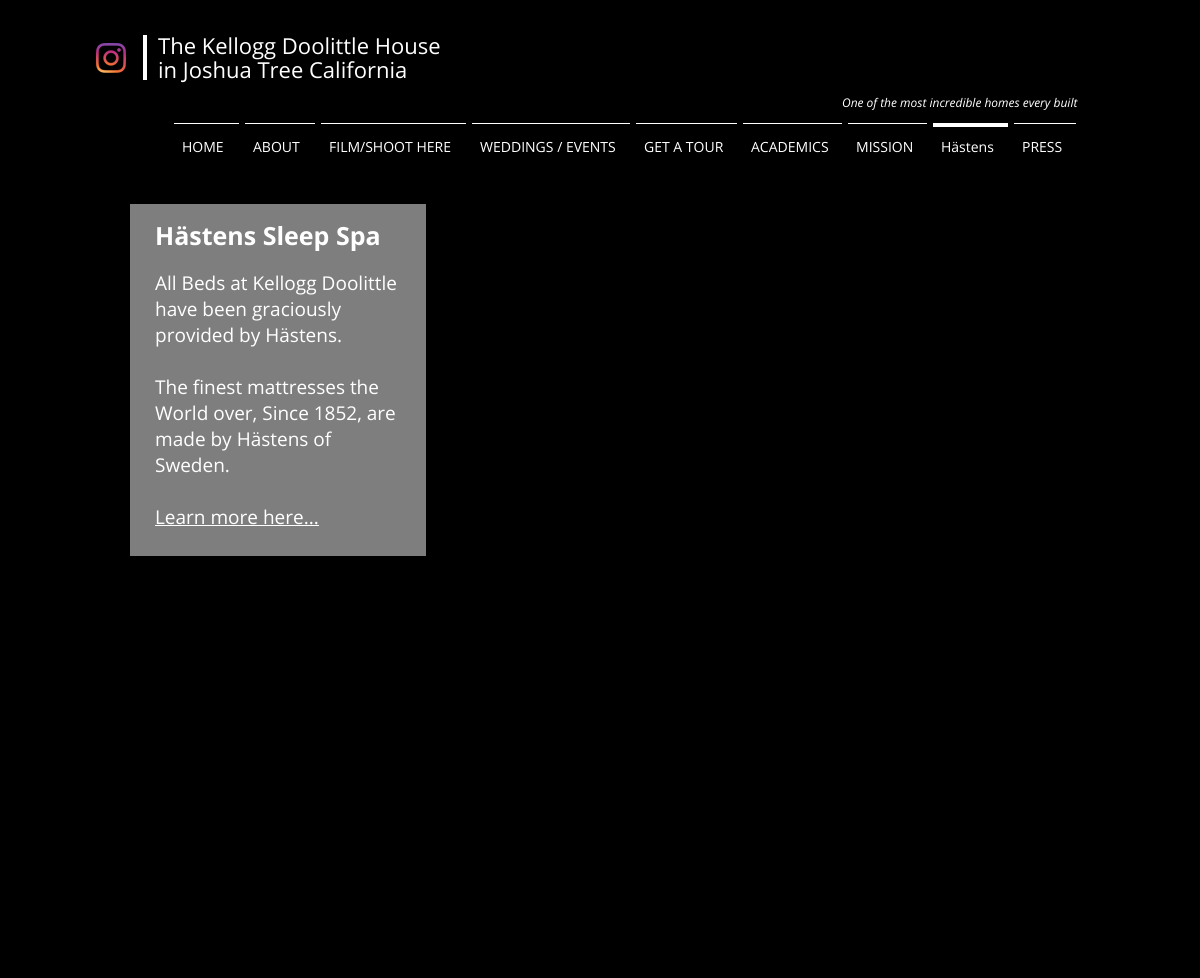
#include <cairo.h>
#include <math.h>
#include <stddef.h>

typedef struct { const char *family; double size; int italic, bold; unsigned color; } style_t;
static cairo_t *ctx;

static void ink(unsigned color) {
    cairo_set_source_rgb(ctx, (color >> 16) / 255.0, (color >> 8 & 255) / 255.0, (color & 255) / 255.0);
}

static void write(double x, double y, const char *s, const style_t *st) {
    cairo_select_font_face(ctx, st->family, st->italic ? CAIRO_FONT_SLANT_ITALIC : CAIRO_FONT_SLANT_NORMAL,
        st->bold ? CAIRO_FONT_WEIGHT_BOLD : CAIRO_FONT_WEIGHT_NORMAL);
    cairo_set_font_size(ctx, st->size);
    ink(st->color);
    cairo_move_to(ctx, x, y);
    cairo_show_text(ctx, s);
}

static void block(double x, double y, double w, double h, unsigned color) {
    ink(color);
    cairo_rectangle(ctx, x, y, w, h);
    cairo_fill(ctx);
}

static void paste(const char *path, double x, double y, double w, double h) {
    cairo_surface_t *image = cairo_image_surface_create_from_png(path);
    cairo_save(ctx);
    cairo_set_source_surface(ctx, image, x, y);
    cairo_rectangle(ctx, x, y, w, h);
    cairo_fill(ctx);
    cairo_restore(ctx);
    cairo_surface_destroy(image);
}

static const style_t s1 = {"Open Sans", 22, 0, 0, 0xffffff};
static const style_t s2 = {"Open Sans", 12, 1, 0, 0xffffff};
static const style_t s3 = {"Open Sans", 14, 0, 0, 0xffffff};
static const style_t s4 = {"Open Sans", 25, 0, 1, 0xffffff};
static const style_t s5 = {"Open Sans", 19, 0, 0, 0xffffff};

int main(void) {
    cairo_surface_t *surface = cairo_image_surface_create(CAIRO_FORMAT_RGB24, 1200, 978);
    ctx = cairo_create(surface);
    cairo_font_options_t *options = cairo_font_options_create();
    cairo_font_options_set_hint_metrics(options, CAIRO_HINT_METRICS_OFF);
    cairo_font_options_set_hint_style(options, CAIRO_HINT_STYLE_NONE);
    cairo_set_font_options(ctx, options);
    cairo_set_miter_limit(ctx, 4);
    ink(0x000000);
    cairo_paint(ctx);
    paste("pic1.png", 96, 43, 30, 30);
    block(143, 35, 4, 45, 0xffffff);
    write(158, 54, "The Kellogg Doolittle House", &s1);
    write(158, 78, "in Joshua Tree California", &s1);
    write(842, 107, "One of the most incredible homes every built", &s2);
    block(174, 123, 65, 1, 0xffffff);
    write(182, 152, "HOME", &s3);
    block(245, 123, 70, 1, 0xffffff);
    write(253, 152, "ABOUT", &s3);
    block(321, 123, 145, 1, 0xffffff);
    write(329, 152, "FILM/SHOOT HERE", &s3);
    block(472, 123, 158, 1, 0xffffff);
    write(480, 152, "WEDDINGS / EVENTS", &s3);
    block(636, 123, 101, 1, 0xffffff);
    write(644, 152, "GET A TOUR", &s3);
    block(743, 123, 99, 1, 0xffffff);
    write(751, 152, "ACADEMICS", &s3);
    block(848, 123, 79, 1, 0xffffff);
    write(856, 152, "MISSION", &s3);
    block(933, 123, 75, 4, 0xffffff);
    write(941, 152, "Hästens", &s3);
    block(1014, 123, 62, 1, 0xffffff);
    write(1022, 152, "PRESS", &s3);
    block(130, 204, 296, 352, 0x7f7e7e);
    write(155, 245, "Hästens Sleep Spa", &s4);
    write(155, 290, "All Beds at Kellogg Doolittle", &s5);
    write(155, 316, "have been graciously", &s5);
    write(155, 342, "provided by Hästens.", &s5);
    write(155, 394, "The finest mattresses the", &s5);
    write(155, 420, "World over, Since 1852, are", &s5);
    write(155, 446, "made by Hästens of", &s5);
    write(155, 472, "Sweden.", &s5);
    write(155, 524, "Learn more here...", &s5);
    block(155, 525, 164, 1, 0xffffff);
    cairo_surface_write_to_png(surface, "screenshot.png");
    cairo_font_options_destroy(options);
    cairo_destroy(ctx);
    cairo_surface_destroy(surface);
    return 0;
}
